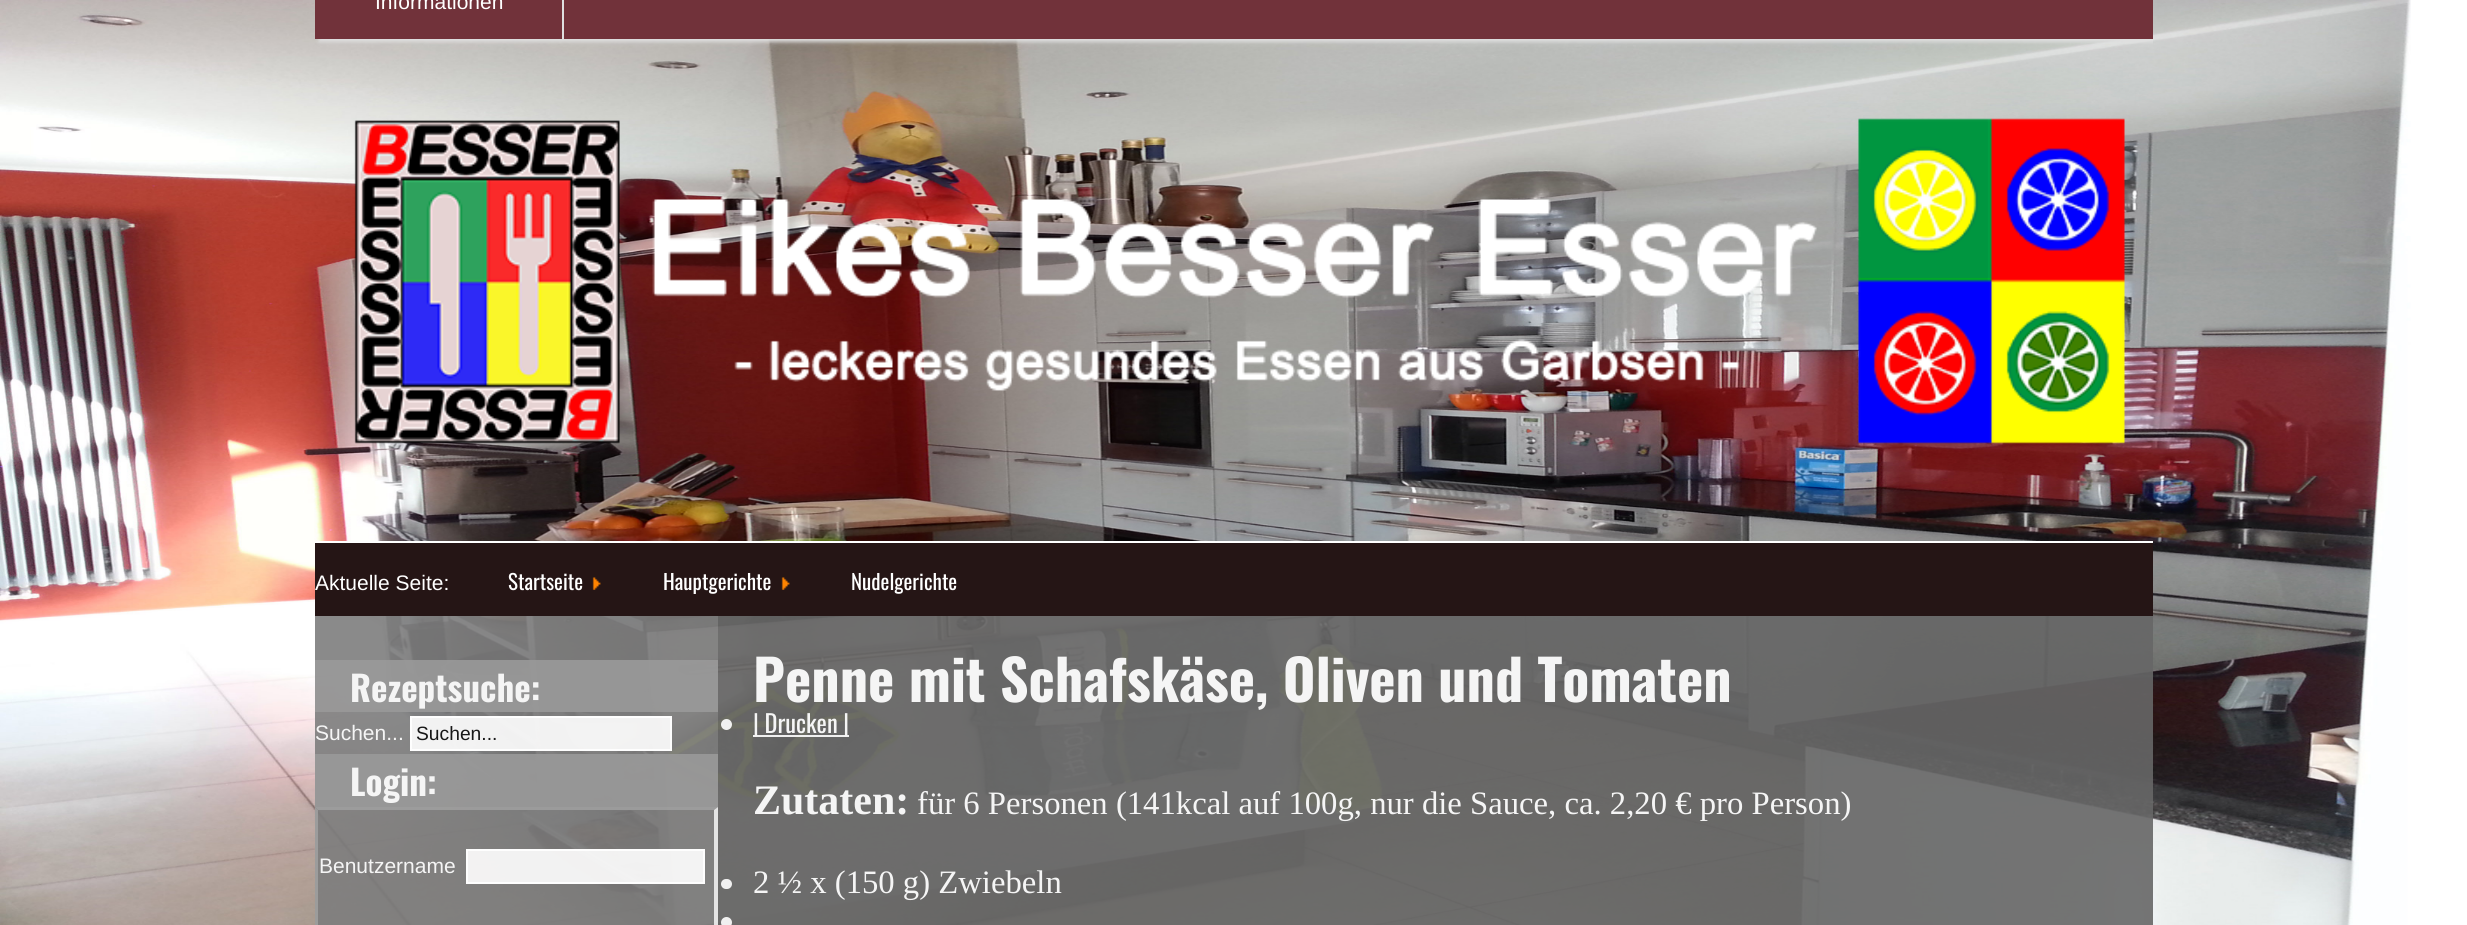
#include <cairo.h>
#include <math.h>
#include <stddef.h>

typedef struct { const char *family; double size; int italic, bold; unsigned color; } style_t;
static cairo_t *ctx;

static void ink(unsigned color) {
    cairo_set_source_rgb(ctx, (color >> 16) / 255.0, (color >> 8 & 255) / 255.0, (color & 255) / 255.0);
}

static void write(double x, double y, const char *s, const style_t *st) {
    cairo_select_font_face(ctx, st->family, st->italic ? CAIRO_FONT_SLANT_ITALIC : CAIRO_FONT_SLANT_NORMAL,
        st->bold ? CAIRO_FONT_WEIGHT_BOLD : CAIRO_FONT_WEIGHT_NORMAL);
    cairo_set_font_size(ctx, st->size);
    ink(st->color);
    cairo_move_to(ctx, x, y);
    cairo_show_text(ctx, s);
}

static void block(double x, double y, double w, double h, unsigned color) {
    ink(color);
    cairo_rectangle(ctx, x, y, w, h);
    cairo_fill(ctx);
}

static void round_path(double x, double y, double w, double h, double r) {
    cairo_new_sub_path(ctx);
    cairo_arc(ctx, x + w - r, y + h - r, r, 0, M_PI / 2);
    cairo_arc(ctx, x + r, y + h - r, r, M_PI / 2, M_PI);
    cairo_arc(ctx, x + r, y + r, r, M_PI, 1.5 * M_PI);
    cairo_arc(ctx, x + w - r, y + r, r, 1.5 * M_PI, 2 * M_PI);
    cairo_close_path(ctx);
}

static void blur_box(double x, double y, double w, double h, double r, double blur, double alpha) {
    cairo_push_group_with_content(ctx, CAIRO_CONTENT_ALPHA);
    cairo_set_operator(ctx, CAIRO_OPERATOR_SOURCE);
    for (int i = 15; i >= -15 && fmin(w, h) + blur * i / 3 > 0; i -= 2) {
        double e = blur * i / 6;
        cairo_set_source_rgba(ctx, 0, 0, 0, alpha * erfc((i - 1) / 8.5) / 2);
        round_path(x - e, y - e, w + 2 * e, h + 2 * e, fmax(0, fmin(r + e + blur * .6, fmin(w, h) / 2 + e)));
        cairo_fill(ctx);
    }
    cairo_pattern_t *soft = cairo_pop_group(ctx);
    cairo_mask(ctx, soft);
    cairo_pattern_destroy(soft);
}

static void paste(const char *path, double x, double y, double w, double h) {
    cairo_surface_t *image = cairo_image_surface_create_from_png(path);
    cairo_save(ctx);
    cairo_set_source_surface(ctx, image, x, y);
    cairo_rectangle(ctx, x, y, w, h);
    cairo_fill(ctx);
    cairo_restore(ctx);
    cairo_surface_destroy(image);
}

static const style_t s1 = {"Liberation Sans", 21, 0, 0, 0xffffff};
static const style_t s2 = {"Oswald", 21, 0, 0, 0xffffff};
static const style_t s3 = {"Oswald", 35, 0, 1, 0xf5f5f5};
static const style_t s4 = {"Liberation Sans", 21, 0, 0, 0xf5f5f5};
static const style_t s5 = {"Liberation Sans", 19.25, 0, 0, 0x181818};
static const style_t s6 = {"Oswald", 56, 0, 1, 0xf5f5f5};
static const style_t s7 = {"Oswald", 24.5, 0, 0, 0xf5f5f5};
static const style_t s8 = {"Liberation Serif", 42, 0, 1, 0xf5f5f5};
static const style_t s9 = {"Liberation Serif", 32.7, 0, 0, 0xf5f5f5};

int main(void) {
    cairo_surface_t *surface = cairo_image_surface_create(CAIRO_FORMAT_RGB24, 2467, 925);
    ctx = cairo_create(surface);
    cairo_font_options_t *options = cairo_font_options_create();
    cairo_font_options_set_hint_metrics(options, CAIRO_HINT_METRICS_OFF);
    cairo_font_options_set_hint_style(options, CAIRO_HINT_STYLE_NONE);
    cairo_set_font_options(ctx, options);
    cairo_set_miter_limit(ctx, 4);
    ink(0xffffff);
    cairo_paint(ctx);
    paste("pic1.png", 0, 0, 2411, 925);
    cairo_save(ctx);
    cairo_rectangle(ctx, 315, 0, 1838, 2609);
    cairo_clip(ctx);
    ink(0xdfdfdf);
    blur_box(319, -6, 1837, 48, 0, 2, 1);
    cairo_restore(ctx);
    block(315, 0, 1838, 39, 0x71323a);
    block(562, 0, 2, 39, 0xdfdfdf);
    write(375, 9, "Informationen", &s1);
    paste("pic2.png", 354, 118, 1771, 326);
    block(315, 543, 1838, 73, 0x251515);
    block(315, 541, 1838, 2, 0xffffff);
    write(315, 590, "Aktuelle Seite:", &s1);
    write(508, 590, "Startseite", &s2);
    paste("pic3.png", 592, 577, 9, 13);
    write(663, 590, "Hauptgerichte", &s2);
    paste("pic3.png", 781, 577, 9, 13);
    write(851, 590, "Nudelgerichte", &s2);
    cairo_set_source_rgba(ctx, 0.494, 0.494, 0.494, 0.9);
    cairo_rectangle(ctx, 315, 616, 403, 309);
    cairo_fill(ctx);
    cairo_set_source_rgba(ctx, 0.4, 0.4, 0.4, 0.9);
    cairo_rectangle(ctx, 718, 616, 1435, 309);
    cairo_fill(ctx);
    cairo_set_source_rgba(ctx, 0.6, 0.6, 0.6, 0.9);
    cairo_rectangle(ctx, 315, 660, 403, 52);
    cairo_fill(ctx);
    write(350, 702, "Rezeptsuche:", &s3);
    write(315, 740, "Suchen...", &s4);
    cairo_set_source_rgba(ctx, 1, 1, 1, 0.9);
    cairo_rectangle(ctx, 411, 717, 260, 33);
    cairo_fill_preserve(ctx);
    ink(0xfefefe);
    cairo_stroke(ctx);
    write(416, 740, "Suchen...", &s5);
    cairo_set_source_rgba(ctx, 0.6, 0.6, 0.6, 0.9);
    cairo_rectangle(ctx, 315, 754, 403, 53);
    cairo_fill(ctx);
    write(350, 796, "Login:", &s3);
    cairo_set_source_rgba(ctx, 0.624, 0.624, 0.624, 0.9);
    cairo_new_path(ctx);
    cairo_move_to(ctx, 315, 807);
    cairo_line_to(ctx, 718, 807);
    cairo_line_to(ctx, 714, 810);
    cairo_line_to(ctx, 318, 810);
    cairo_close_path(ctx);
    cairo_fill(ctx);
    cairo_set_source_rgba(ctx, 0.937, 0.937, 0.937, 0.9);
    cairo_new_path(ctx);
    cairo_move_to(ctx, 718, 807);
    cairo_line_to(ctx, 718, 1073);
    cairo_line_to(ctx, 714, 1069);
    cairo_line_to(ctx, 714, 810);
    cairo_close_path(ctx);
    cairo_fill(ctx);
    cairo_set_source_rgba(ctx, 0.624, 0.624, 0.624, 0.9);
    cairo_new_path(ctx);
    cairo_move_to(ctx, 315, 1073);
    cairo_line_to(ctx, 315, 807);
    cairo_line_to(ctx, 318, 810);
    cairo_line_to(ctx, 318, 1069);
    cairo_close_path(ctx);
    cairo_fill(ctx);
    write(319, 873, "Benutzername", &s4);
    cairo_set_source_rgba(ctx, 1, 1, 1, 0.9);
    cairo_rectangle(ctx, 467, 850, 237, 33);
    cairo_fill_preserve(ctx);
    ink(0xfefefe);
    cairo_stroke(ctx);
    write(753, 702, "Penne mit Schafskäse, Oliven und Tomaten", &s6);
    cairo_set_source_rgba(ctx, 1, 1, 1, 0.9);
    cairo_new_path(ctx);
    cairo_arc(ctx, 726.5, 724.5, 5.5, 0, 2 * M_PI);
    cairo_fill(ctx);
    cairo_rectangle(ctx, 753, 735, 96, 2);
    cairo_fill(ctx);
    write(753, 733, "| Drucken |", &s7);
    write(753, 814, "Zutaten:", &s8);
    write(917, 814, "für 6 Personen (141kcal auf 100g, nur die Sauce, ca. 2,20 € pro Person)", &s9);
    ink(0xf0f0f0);
    round_path(721, 879, 11, 10, 5);
    cairo_fill(ctx);
    write(753, 893, "2 ½ x (150 g) Zwiebeln", &s9);
    cairo_set_source_rgba(ctx, 1, 1, 1, 0.9);
    cairo_new_path(ctx);
    cairo_arc(ctx, 726.5, 922.5, 5.5, 0, 2 * M_PI);
    cairo_fill(ctx);
    cairo_surface_write_to_png(surface, "screenshot.png");
    cairo_font_options_destroy(options);
    cairo_destroy(ctx);
    cairo_surface_destroy(surface);
    return 0;
}
